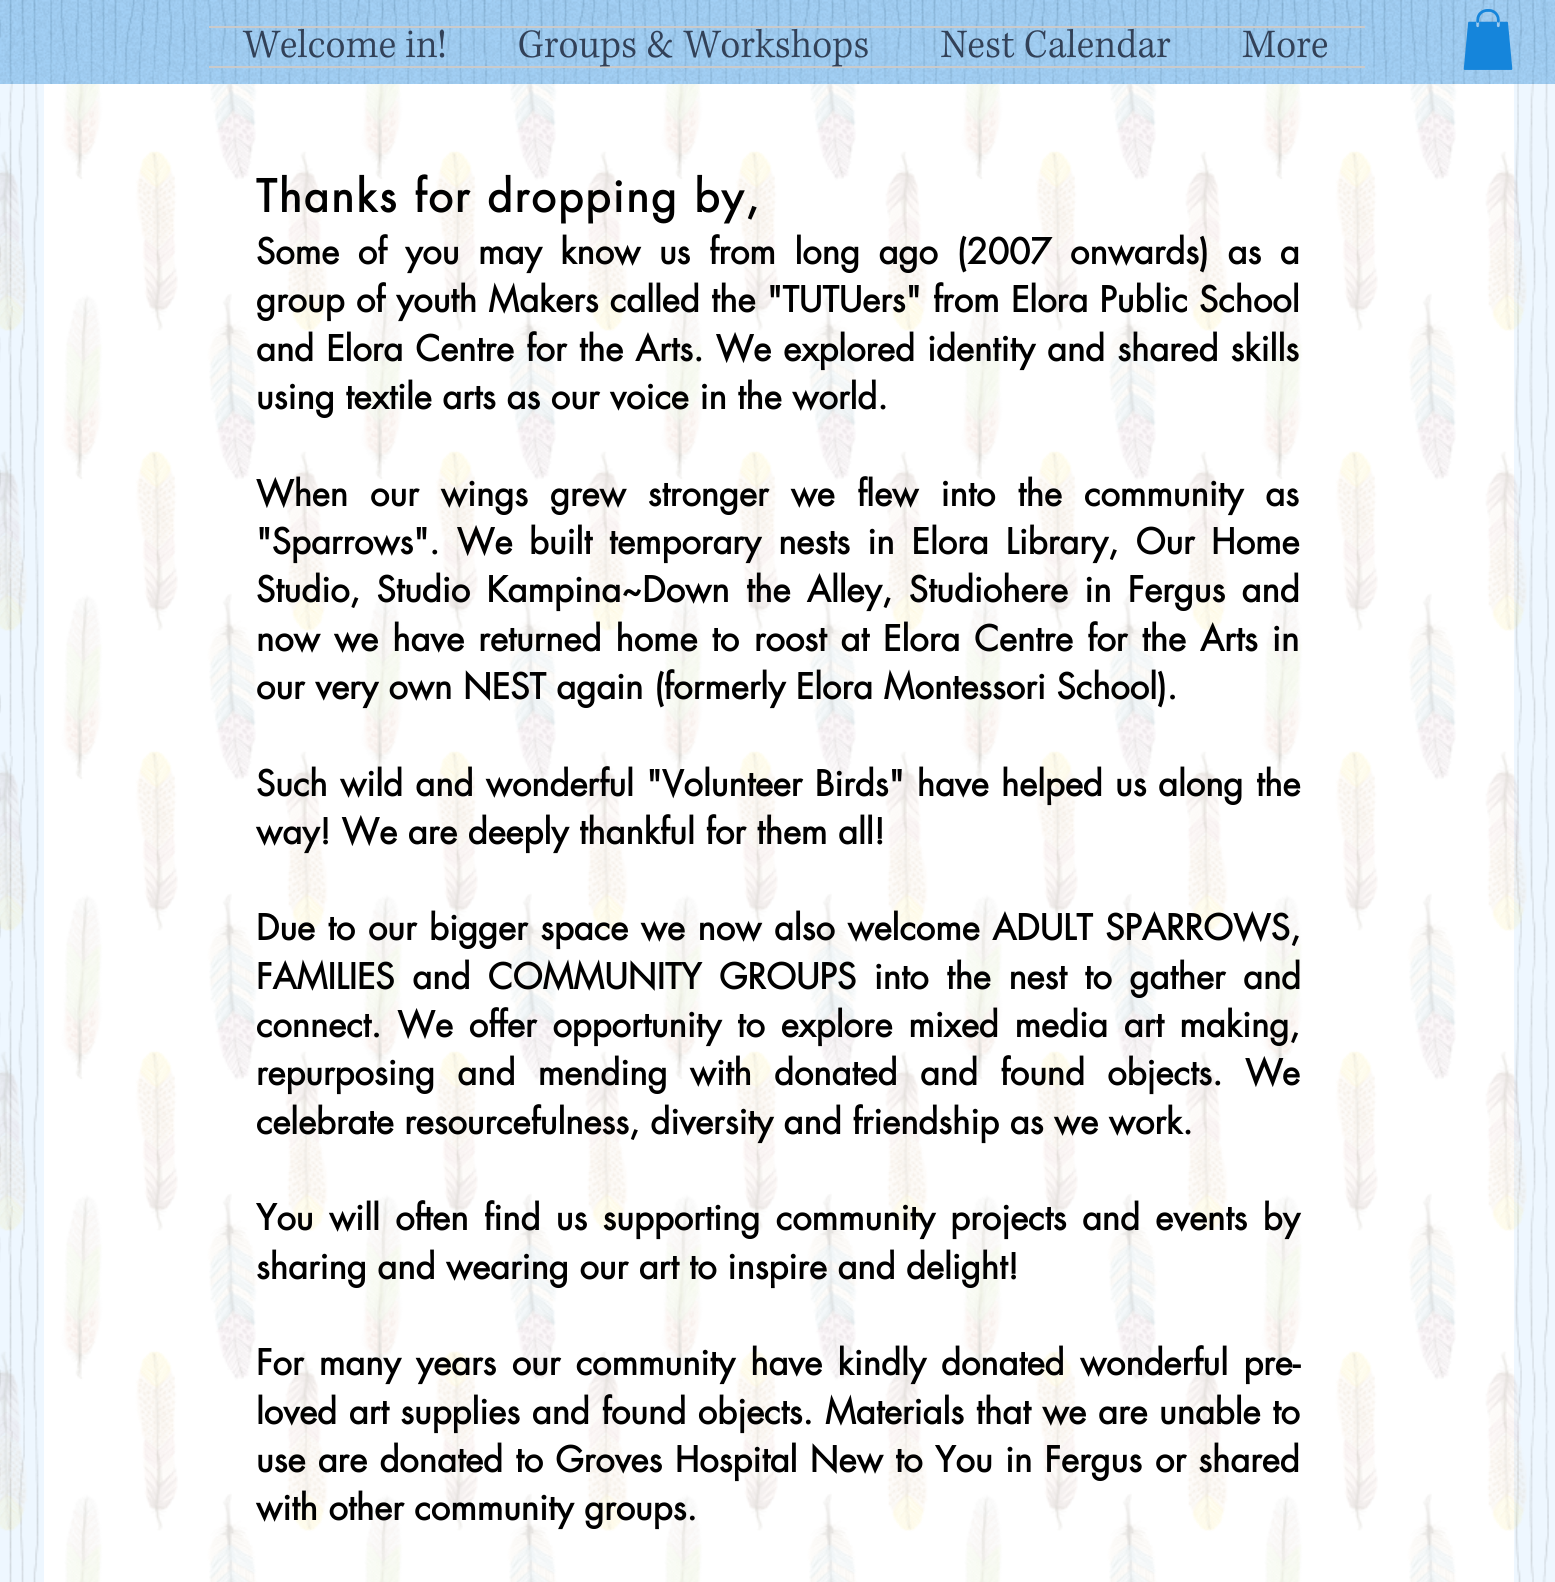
#include <cairo.h>
#include <math.h>
#include <stddef.h>

typedef struct { const char *family; double size; int italic, bold; unsigned color; } style_t;
static cairo_t *ctx;

static void ink(unsigned color) {
    cairo_set_source_rgb(ctx, (color >> 16) / 255.0, (color >> 8 & 255) / 255.0, (color & 255) / 255.0);
}

static void write(double x, double y, const char *s, const style_t *st) {
    cairo_select_font_face(ctx, st->family, st->italic ? CAIRO_FONT_SLANT_ITALIC : CAIRO_FONT_SLANT_NORMAL,
        st->bold ? CAIRO_FONT_WEIGHT_BOLD : CAIRO_FONT_WEIGHT_NORMAL);
    cairo_set_font_size(ctx, st->size);
    ink(st->color);
    cairo_move_to(ctx, x, y);
    cairo_show_text(ctx, s);
}

static void write_spaced(double x, double y, const char *s, double letter, double word) {
    cairo_move_to(ctx, x, y);
    while (*s) {
        char ch[5] = {0};
        int n = 0;
        do ch[n++] = *s++; while ((*s & 0xC0) == 0x80);
        cairo_show_text(ctx, ch);
        cairo_rel_move_to(ctx, letter + word * (*ch == ' '), 0);
    }
}

static void block(double x, double y, double w, double h, unsigned color) {
    ink(color);
    cairo_rectangle(ctx, x, y, w, h);
    cairo_fill(ctx);
}

static void paste(const char *path, double x, double y, double w, double h) {
    cairo_surface_t *image = cairo_image_surface_create_from_png(path);
    cairo_save(ctx);
    cairo_set_source_surface(ctx, image, x, y);
    cairo_rectangle(ctx, x, y, w, h);
    cairo_fill(ctx);
    cairo_restore(ctx);
    cairo_surface_destroy(image);
}

static const style_t s1 = {"futura", 34.5, 0, 1, 0x000000};

int main(void) {
    cairo_surface_t *surface = cairo_image_surface_create(CAIRO_FORMAT_RGB24, 1555, 1582);
    ctx = cairo_create(surface);
    cairo_font_options_t *options = cairo_font_options_create();
    cairo_font_options_set_hint_metrics(options, CAIRO_HINT_METRICS_OFF);
    cairo_font_options_set_hint_style(options, CAIRO_HINT_STYLE_NONE);
    cairo_set_font_options(ctx, options);
    cairo_set_miter_limit(ctx, 4);
    ink(0xe6f4ff);
    cairo_paint(ctx);
    block(0, 84, 1555, 1498, 0xeef7ff);
    paste("pic1.png", 0, 0, 1549, 1582);
    cairo_set_source_rgba(ctx, 0.239, 0.608, 0.914, 0.4);
    cairo_rectangle(ctx, 0, 0, 1555, 84);
    cairo_fill(ctx);
    paste("pic2.png", 0, 0, 1555, 84);
    block(209, 26, 1156, 2, 0xcacaca);
    block(209, 66, 1156, 2, 0xcacaca);
    paste("pic3.png", 242, 28, 203, 30);
    paste("pic4.png", 519, 28, 349, 39);
    paste("pic5.png", 941, 28, 230, 30);
    paste("pic6.png", 1242, 30, 86, 28);
    paste("pic7.png", 1463, 9, 50, 61);
    block(44, 84, 1470, 1498, 0xffffff);
    paste("pic8.png", 0, 84, 1527, 1498);
    cairo_select_font_face(ctx, "futura", CAIRO_FONT_SLANT_NORMAL, CAIRO_FONT_WEIGHT_BOLD);
    cairo_set_font_size(ctx, 43.5);
    ink(0x000000);
    write_spaced(256, 212, "Thanks for dropping by,", 2.2, 0);
    cairo_set_font_size(ctx, 34.5);
    write_spaced(256, 264, "Some of you may know us from long ago (2007 onwards) as a", 0, 8);
    write_spaced(256, 312, "group of youth Makers called the \"TUTUers\" from Elora Public School", 0, 0.75);
    write_spaced(256, 361, "and Elora Centre for the Arts. We explored identity and shared skills", 0, 1.5);
    write(256, 409, "using textile arts as our voice in the world.", &s1);
    write_spaced(256, 506, "When our wings", 0, 11.5);
    write_spaced(550, 506, "grew stronger we flew into the community as", 0, 11.5);
    write_spaced(256, 554, "\"Sparrows\". We", 0, 6.5);
    write_spaced(529, 554, "built temporary nests in Elora Library, Our", 0, 6.5);
    write(1211, 554, "Home", &s1);
    write_spaced(256, 602, "Studio, Studio Kampina~Down", 0, 5.75);
    write_spaced(746, 602, "the Alley, Studiohere in Fergus and", 0, 5.75);
    write_spaced(256, 651, "now we have returned home to", 0, 3.5);
    write_spaced(754, 651, "roost at", 0, 3.5);
    write_spaced(883, 651, "Elora Centre for the Arts in", 0, 3.5);
    write(256, 699, "our very own NEST again (formerly Elora Montessori School).", &s1);
    write_spaced(256, 796, "Such wild and wonderful \"Volunteer Birds\" have helped us", 0, 1.75);
    write_spaced(1158, 796, "along the", 0, 2);
    write(256, 844, "way! We are deeply thankful for them all!", &s1);
    write_spaced(256, 940, "Due to our bigger space we now also welcome ADULT SPARROWS,", 0, 2);
    write_spaced(256, 989, "FAMILIES and COMMUNITY GROUPS into the nest to gather and", 0, 7);
    write_spaced(256, 1037, "connect. We offer opportunity to explore mixed media art making,", 0, 5.25);
    write_spaced(256, 1085, "repurposing and mending with donated and found objects. W", 0, 11.75);
    write(1282, 1085, "e", &s1);
    write(256, 1134, "celebrate resourcefulness, diversity and friendship as we work.", &s1);
    write_spaced(256, 1230, "You will often find us supporting community projects and events by", 0, 4.75);
    write(256, 1279, "sharing and wearing our art to inspire and delight!", &s1);
    write_spaced(256, 1375, "For many years our community have kindly", 0, 4.75);
    write_spaced(941, 1375, "donated wonderful pre-", 0, 4.75);
    write_spaced(256, 1424, "loved art supplies and found objects. Materials that we are unable to", 0, 1.1);
    write_spaced(256, 1472, "use are donated to Groves Hospital New to You in Fergus", 0, 1.75);
    write_spaced(1155, 1472, "or shared", 0, 1.75);
    write(256, 1520, "with other community groups.", &s1);
    cairo_surface_write_to_png(surface, "screenshot.png");
    cairo_font_options_destroy(options);
    cairo_destroy(ctx);
    cairo_surface_destroy(surface);
    return 0;
}
